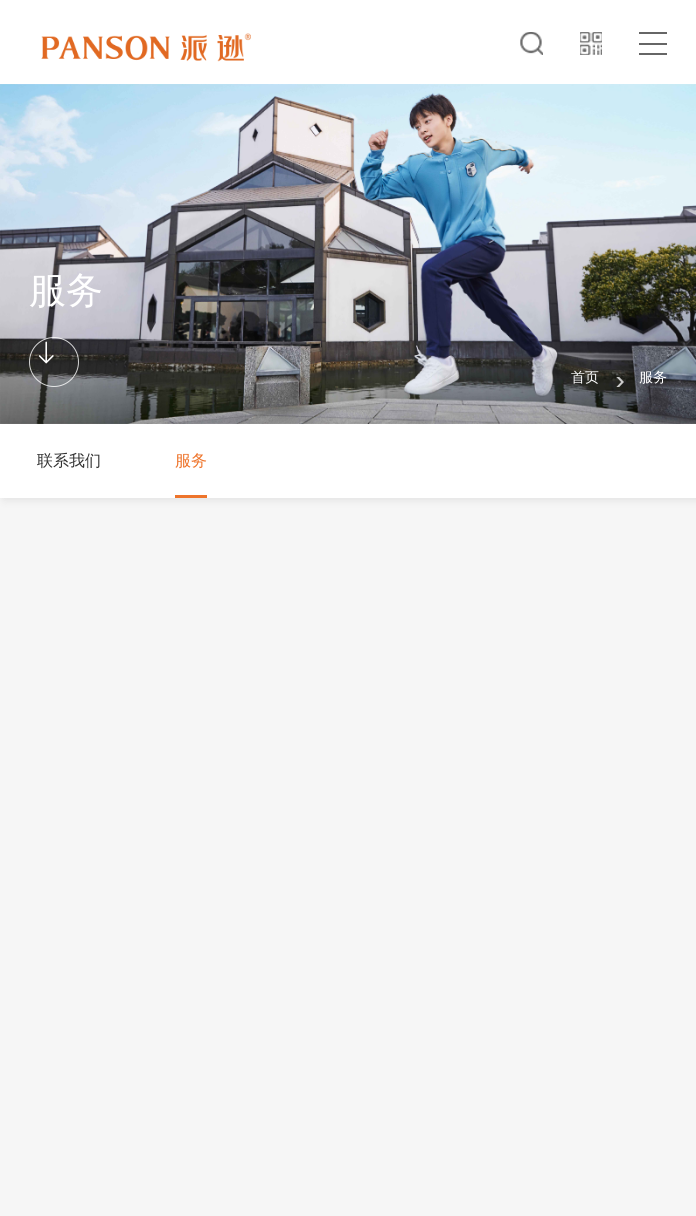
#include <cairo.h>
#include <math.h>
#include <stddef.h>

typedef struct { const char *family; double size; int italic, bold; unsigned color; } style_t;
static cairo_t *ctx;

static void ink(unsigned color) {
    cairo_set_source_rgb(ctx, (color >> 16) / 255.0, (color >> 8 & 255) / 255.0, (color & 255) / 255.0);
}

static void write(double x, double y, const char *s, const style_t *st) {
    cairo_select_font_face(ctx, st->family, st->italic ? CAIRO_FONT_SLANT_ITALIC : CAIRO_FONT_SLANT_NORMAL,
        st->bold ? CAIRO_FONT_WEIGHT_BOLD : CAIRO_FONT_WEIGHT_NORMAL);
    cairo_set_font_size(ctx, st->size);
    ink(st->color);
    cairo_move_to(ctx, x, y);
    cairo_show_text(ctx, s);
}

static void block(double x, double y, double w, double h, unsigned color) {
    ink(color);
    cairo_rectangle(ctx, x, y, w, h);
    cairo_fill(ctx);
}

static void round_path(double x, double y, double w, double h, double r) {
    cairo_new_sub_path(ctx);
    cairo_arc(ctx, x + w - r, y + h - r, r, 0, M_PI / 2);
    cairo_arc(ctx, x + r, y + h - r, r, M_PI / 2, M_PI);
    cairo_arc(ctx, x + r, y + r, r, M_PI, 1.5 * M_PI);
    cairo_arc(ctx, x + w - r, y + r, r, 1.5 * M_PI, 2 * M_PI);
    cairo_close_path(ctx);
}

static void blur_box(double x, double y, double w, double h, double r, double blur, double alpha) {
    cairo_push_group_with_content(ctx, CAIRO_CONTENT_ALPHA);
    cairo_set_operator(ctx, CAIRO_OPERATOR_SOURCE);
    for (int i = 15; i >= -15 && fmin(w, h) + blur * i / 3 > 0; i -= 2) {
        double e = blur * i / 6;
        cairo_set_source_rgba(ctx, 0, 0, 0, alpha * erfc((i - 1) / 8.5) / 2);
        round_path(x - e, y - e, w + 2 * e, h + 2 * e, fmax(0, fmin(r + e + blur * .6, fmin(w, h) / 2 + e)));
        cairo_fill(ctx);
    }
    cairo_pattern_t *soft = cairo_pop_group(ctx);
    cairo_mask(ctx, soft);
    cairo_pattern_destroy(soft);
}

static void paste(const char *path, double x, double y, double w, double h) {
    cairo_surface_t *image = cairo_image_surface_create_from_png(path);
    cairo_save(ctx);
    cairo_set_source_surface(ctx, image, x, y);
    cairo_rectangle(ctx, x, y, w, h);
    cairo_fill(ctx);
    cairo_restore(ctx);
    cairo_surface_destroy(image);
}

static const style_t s1 = {"WenQuanYi Zen Hei Medium", 37, 0, 0, 0xffffff};
static const style_t s2 = {"WenQuanYi Zen Hei Medium", 14, 0, 0, 0xffffff};
static const style_t s3 = {"WenQuanYi Zen Hei Medium", 16, 0, 0, 0x333333};
static const style_t s4 = {"WenQuanYi Zen Hei Medium", 16, 0, 0, 0xee742b};

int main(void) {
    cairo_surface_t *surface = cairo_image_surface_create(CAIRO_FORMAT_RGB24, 696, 1216);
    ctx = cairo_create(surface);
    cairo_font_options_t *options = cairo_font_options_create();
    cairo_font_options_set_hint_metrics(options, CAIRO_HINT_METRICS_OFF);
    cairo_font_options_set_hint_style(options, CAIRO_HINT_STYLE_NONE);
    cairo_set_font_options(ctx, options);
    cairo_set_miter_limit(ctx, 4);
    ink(0xffffff);
    cairo_paint(ctx);
    paste("pic1.png", 41, 33, 210, 29);
    paste("pic2.png", 520, 32, 23, 23);
    paste("pic3.png", 580, 32, 22, 23);
    block(639, 32, 28, 2, 0x666666);
    block(639, 43, 28, 2, 0x666666);
    block(639, 53, 28, 2, 0x666666);
    paste("pic4.png", 0, 84, 696, 340);
    write(29, 303, "服务", &s1);
    cairo_new_path(ctx);
    cairo_arc(ctx, 54, 362, 24.5, 0, 2 * M_PI);
    cairo_set_source_rgba(ctx, 1, 1, 1, 0.8);
    cairo_set_line_width(ctx, 1);
    cairo_stroke(ctx);
    paste("pic5.png", 38, 341, 16, 23);
    write(571, 382, "首页", &s2);
    paste("pic6.png", 616, 377, 8, 10);
    write(639, 382, "服务", &s2);
    block(0, 498, 696, 718, 0xf6f6f6);
    cairo_save(ctx);
    cairo_set_fill_rule(ctx, CAIRO_FILL_RULE_EVEN_ODD);
    cairo_new_path(ctx);
    cairo_move_to(ctx, 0, 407);
    cairo_line_to(ctx, 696, 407);
    cairo_line_to(ctx, 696, 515);
    cairo_line_to(ctx, 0, 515);
    cairo_close_path(ctx);
    cairo_move_to(ctx, 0, 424);
    cairo_line_to(ctx, 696, 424);
    cairo_line_to(ctx, 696, 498);
    cairo_line_to(ctx, 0, 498);
    cairo_close_path(ctx);
    cairo_clip(ctx);
    ink(0x000000);
    blur_box(4, 423, 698, 76, 0, 5, 0.1);
    cairo_restore(ctx);
    write(37, 466, "联系我们", &s3);
    write(175, 466, "服务", &s4);
    block(175, 495, 32, 3, 0xee742b);
    cairo_surface_write_to_png(surface, "screenshot.png");
    cairo_font_options_destroy(options);
    cairo_destroy(ctx);
    cairo_surface_destroy(surface);
    return 0;
}
